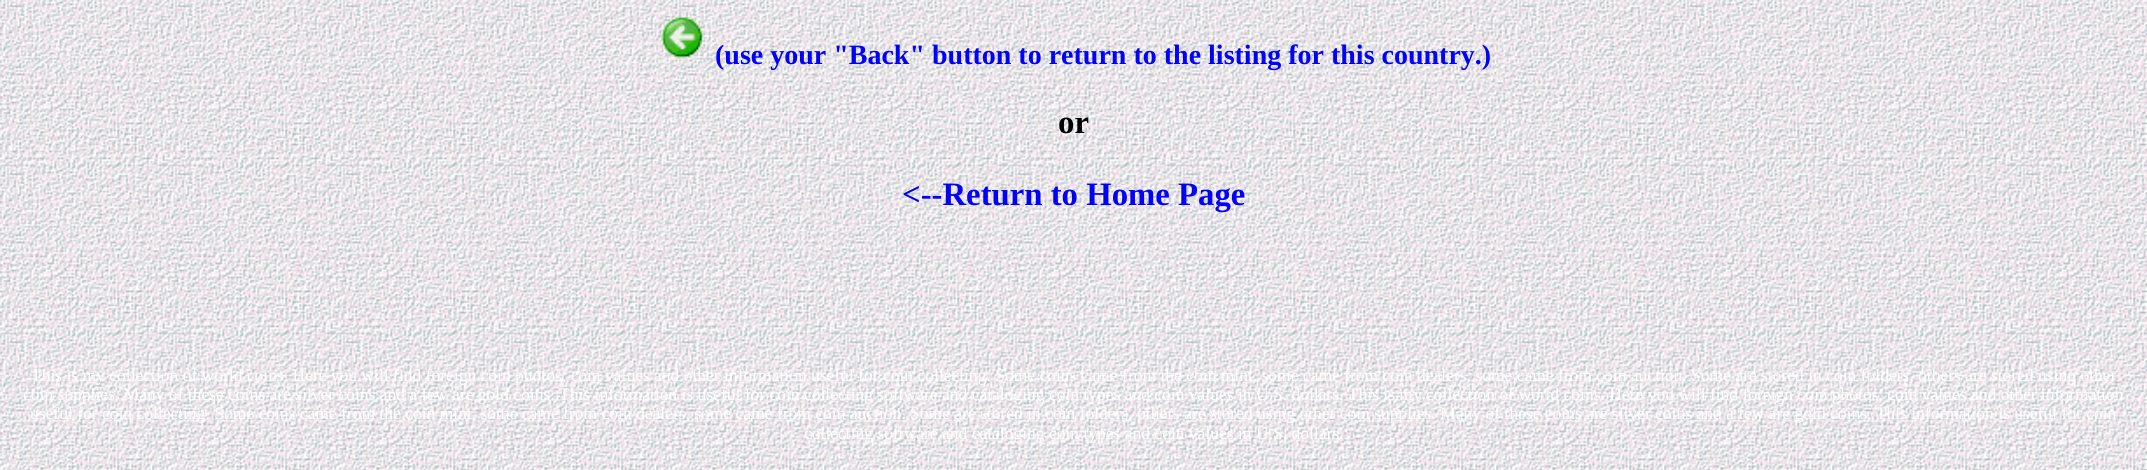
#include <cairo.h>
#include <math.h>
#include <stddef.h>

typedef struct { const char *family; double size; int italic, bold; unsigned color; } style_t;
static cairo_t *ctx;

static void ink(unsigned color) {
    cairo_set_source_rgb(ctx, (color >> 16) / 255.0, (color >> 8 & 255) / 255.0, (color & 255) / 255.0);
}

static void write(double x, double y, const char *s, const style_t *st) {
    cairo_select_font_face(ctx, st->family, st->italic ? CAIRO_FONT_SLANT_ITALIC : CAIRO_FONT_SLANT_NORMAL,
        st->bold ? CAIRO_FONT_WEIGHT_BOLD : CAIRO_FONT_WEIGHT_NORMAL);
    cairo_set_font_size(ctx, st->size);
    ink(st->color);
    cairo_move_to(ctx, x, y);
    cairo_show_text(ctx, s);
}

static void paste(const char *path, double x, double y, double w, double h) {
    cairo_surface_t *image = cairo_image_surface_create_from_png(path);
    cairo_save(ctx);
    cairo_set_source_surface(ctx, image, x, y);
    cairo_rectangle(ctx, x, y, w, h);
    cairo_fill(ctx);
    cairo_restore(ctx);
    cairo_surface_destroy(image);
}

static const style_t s1 = {"Liberation Serif", 28, 0, 1, 0x0000ff};
static const style_t s2 = {"Liberation Serif", 32.75, 0, 1, 0x000000};
static const style_t s3 = {"Liberation Serif", 32.75, 0, 1, 0x0000ff};
static const style_t s4 = {"Liberation Serif", 17.5, 0, 0, 0xffffff};

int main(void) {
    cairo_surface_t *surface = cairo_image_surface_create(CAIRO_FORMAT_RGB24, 2147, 470);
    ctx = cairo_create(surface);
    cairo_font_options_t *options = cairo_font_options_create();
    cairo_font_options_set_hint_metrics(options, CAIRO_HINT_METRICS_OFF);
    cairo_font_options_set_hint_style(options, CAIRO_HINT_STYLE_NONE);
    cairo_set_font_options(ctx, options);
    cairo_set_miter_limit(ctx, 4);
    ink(0xffffff);
    cairo_paint(ctx);
    paste("pic1.png", 0, 0, 2147, 470);
    paste("pic2.png", 661, 17, 42, 42);
    write(715, 64, "(use your \"Back\" button to return to the listing for this country.)", &s1);
    write(1058, 133, "or", &s2);
    write(902, 205, "<--Return to Home Page", &s3);
    write(31, 381, "This is my collection of world coins. Here you will find foreign coin photos, coin values and other information useful for coin collecting. Some coins came from the coin mint, some came from coin dealers, some came from coin auction. Some are stored in coin folders, others are stored using other", &s4);
    write(23, 400, "coin supplies. Many of these coins are silver coins and a few are gold coins. This information is useful for coin collecting software and cataloging coin types and coin values in U.S. dollars. This is my collection of world coins. Here you will find foreign coin photos, coin values and other information", &s4);
    write(30, 419, "useful for coin collecting. Some coins came from the coin mint, some came from coin dealers, some came from coin auction. Some are stored in coin folders, others are stored using other coin supplies. Many of these coins are silver coins and a few are gold coins. This information is useful for coin", &s4);
    write(804, 439, "collecting software and cataloging coin types and coin values in U.S. dollars.", &s4);
    cairo_surface_write_to_png(surface, "screenshot.png");
    cairo_font_options_destroy(options);
    cairo_destroy(ctx);
    cairo_surface_destroy(surface);
    return 0;
}
